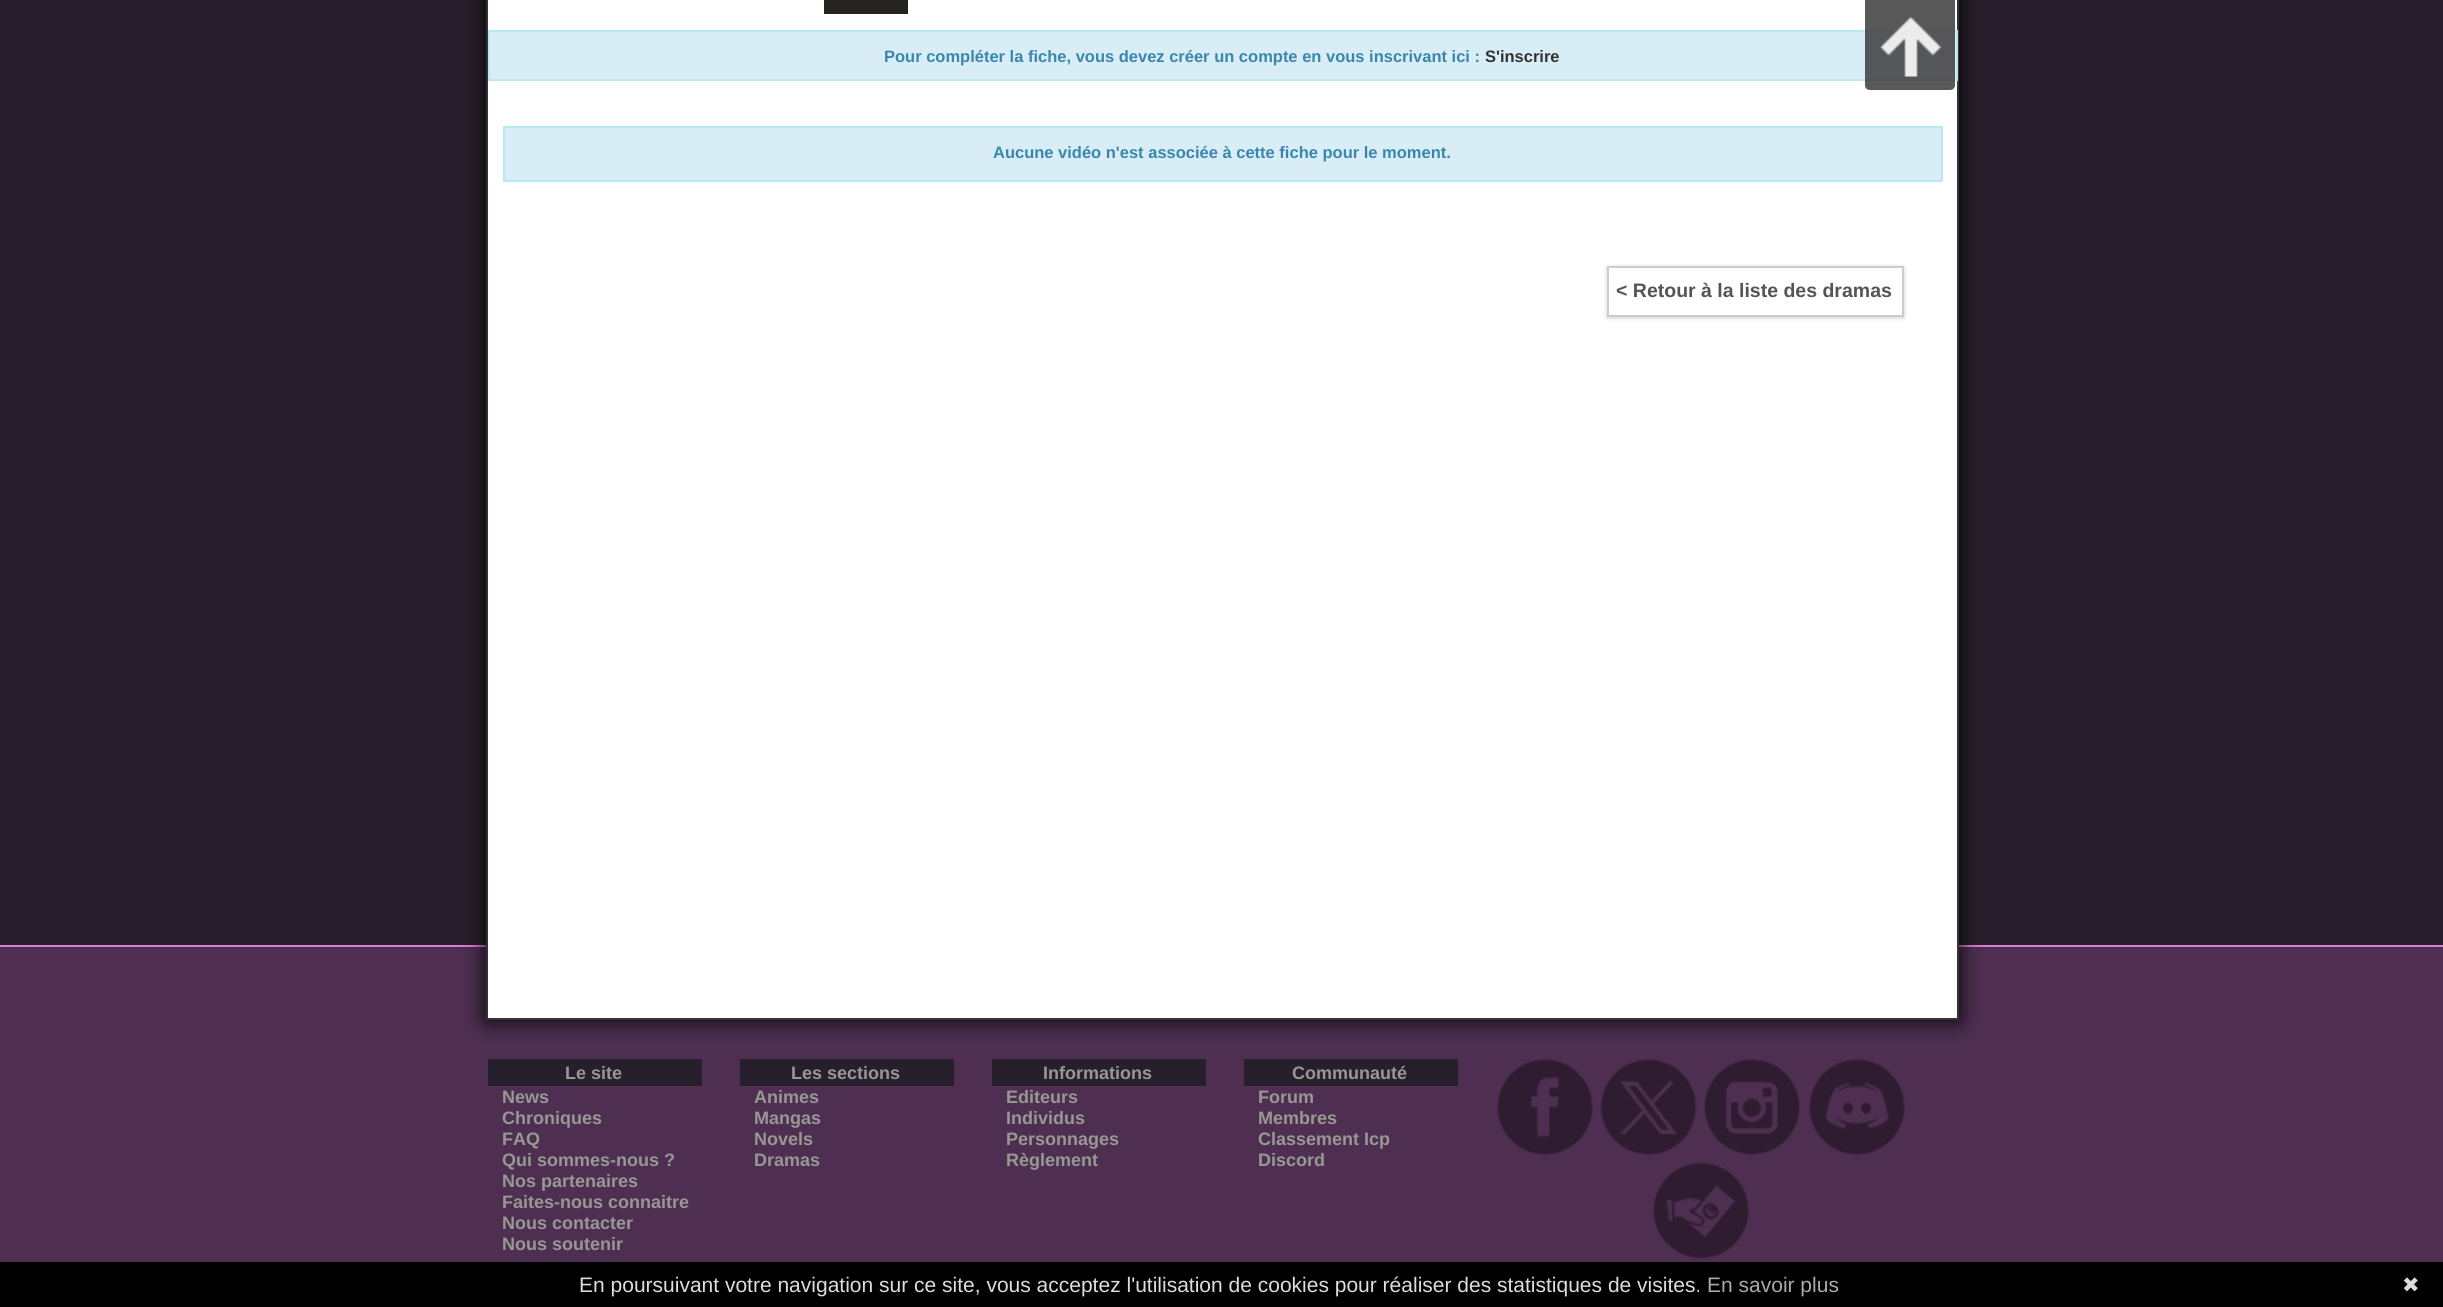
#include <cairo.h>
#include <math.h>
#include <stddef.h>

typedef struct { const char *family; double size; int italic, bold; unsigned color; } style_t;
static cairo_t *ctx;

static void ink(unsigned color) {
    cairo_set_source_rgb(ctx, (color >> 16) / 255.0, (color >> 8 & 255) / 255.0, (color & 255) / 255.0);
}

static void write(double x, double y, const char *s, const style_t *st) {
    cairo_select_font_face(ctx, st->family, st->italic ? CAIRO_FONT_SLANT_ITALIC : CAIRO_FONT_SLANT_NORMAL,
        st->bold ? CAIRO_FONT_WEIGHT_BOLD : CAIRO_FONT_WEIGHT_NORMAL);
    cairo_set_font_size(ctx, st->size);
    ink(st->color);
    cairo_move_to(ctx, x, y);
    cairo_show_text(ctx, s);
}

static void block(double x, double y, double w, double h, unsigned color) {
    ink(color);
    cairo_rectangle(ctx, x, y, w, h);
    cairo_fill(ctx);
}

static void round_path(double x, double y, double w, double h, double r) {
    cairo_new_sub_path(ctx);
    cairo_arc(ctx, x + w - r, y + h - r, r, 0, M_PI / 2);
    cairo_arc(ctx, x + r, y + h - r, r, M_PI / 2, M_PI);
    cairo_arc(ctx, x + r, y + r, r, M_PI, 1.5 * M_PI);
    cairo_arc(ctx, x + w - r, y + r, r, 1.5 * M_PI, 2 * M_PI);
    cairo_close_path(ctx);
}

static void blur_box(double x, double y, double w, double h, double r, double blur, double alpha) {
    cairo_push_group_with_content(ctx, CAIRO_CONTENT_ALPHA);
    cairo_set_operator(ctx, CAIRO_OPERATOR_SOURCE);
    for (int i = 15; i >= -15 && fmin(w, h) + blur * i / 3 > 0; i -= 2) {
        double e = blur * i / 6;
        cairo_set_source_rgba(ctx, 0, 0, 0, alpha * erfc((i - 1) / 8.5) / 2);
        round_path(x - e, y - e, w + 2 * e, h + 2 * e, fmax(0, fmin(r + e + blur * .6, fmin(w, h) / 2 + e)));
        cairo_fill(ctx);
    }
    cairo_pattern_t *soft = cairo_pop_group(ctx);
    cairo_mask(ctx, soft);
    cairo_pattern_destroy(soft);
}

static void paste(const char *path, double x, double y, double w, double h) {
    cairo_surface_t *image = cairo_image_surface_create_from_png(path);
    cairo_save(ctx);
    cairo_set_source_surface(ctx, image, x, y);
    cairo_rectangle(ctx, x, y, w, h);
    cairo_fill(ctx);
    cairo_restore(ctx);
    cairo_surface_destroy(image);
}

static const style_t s1 = {"Liberation Sans", 16.5, 0, 1, 0x3a87ad};
static const style_t s2 = {"Liberation Sans", 16.5, 0, 1, 0x333333};
static const style_t s3 = {"Liberation Sans", 19.5, 0, 1, 0x555555};
static const style_t s4 = {"Liberation Sans", 18, 0, 1, 0x979893};
static const style_t s5 = {"Liberation Sans", 21, 0, 0, 0xdddddd};
static const style_t s6 = {"Liberation Sans", 21, 0, 0, 0xaaaaaa};
static const style_t s7 = {"DejaVu Sans", 21, 0, 0, 0xdddddd};

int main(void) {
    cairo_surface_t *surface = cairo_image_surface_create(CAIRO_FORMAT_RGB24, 2443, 1307);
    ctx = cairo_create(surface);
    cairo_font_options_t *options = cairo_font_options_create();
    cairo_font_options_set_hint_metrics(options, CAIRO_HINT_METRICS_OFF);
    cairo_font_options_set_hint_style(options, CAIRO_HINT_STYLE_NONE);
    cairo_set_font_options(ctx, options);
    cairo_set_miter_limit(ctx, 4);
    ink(0x271f2c);
    cairo_paint(ctx);
    block(0, 947, 2443, 315, 0x4e2f51);
    block(0, 945, 2443, 2, 0xd77fd2);
    ink(0x000000);
    blur_box(486, -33, 1473, 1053, 0, 11, 1);
    ink(0xffffff);
    cairo_rectangle(ctx, 487, -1, 1471, 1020);
    cairo_fill_preserve(ctx);
    ink(0x333333);
    cairo_stroke(ctx);
    block(824, 0, 84, 14, 0x252420);
    ink(0xd9edf7);
    cairo_rectangle(ctx, 489, 31, 1468, 49);
    cairo_fill_preserve(ctx);
    ink(0xbce8f1);
    cairo_stroke(ctx);
    write(884, 62, "Pour compléter la fiche, vous devez créer un compte en vous inscrivant ici :", &s1);
    write(1485, 62, "S'inscrire", &s2);
    ink(0xd9edf7);
    cairo_rectangle(ctx, 504, 127, 1438, 54);
    cairo_fill_preserve(ctx);
    ink(0xbce8f1);
    cairo_stroke(ctx);
    write(993, 158, "Aucune vidéo n'est associée à cette fiche pour le moment.", &s1);
    cairo_save(ctx);
    cairo_set_fill_rule(ctx, CAIRO_FILL_RULE_EVEN_ODD);
    cairo_new_path(ctx);
    cairo_move_to(ctx, 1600, 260);
    cairo_line_to(ctx, 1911, 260);
    cairo_line_to(ctx, 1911, 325);
    cairo_line_to(ctx, 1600, 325);
    cairo_close_path(ctx);
    cairo_move_to(ctx, 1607, 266);
    cairo_line_to(ctx, 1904, 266);
    cairo_line_to(ctx, 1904, 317);
    cairo_line_to(ctx, 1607, 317);
    cairo_close_path(ctx);
    cairo_clip(ctx);
    ink(0xcccccc);
    blur_box(1607, 267, 297, 51, 0, 2, 1);
    cairo_restore(ctx);
    cairo_rectangle(ctx, 1608, 267, 295, 49);
    ink(0xcccccc);
    cairo_stroke(ctx);
    write(1616, 297, "< Retour à la liste des dramas", &s3);
    cairo_set_source_rgba(ctx, 0.267, 0.267, 0.267, 0.89);
    cairo_new_path(ctx);
    cairo_move_to(ctx, 1865, 0);
    cairo_line_to(ctx, 1955, 0);
    cairo_line_to(ctx, 1955, 85);
    cairo_curve_to(ctx, 1955, 88, 1953, 90, 1950, 90);
    cairo_line_to(ctx, 1870, 90);
    cairo_curve_to(ctx, 1867, 90, 1865, 88, 1865, 85);
    cairo_close_path(ctx);
    cairo_fill(ctx);
    paste("pic1.png", 1880, 16, 62, 61);
    block(488, 1059, 214, 27, 0x271f2c);
    write(565, 1079, "Le site", &s4);
    write(502, 1103, "News", &s4);
    write(502, 1124, "Chroniques", &s4);
    write(502, 1145, "FAQ", &s4);
    write(502, 1166, "Qui sommes-nous ?", &s4);
    write(502, 1187, "Nos partenaires", &s4);
    write(502, 1208, "Faites-nous connaitre", &s4);
    write(502, 1229, "Nous contacter", &s4);
    write(502, 1250, "Nous soutenir", &s4);
    block(740, 1059, 214, 27, 0x271f2c);
    write(791, 1079, "Les sections", &s4);
    write(754, 1103, "Animes", &s4);
    write(754, 1124, "Mangas", &s4);
    write(754, 1145, "Novels", &s4);
    write(754, 1166, "Dramas", &s4);
    block(992, 1059, 214, 27, 0x271f2c);
    write(1043, 1079, "Informations", &s4);
    write(1006, 1103, "Editeurs", &s4);
    write(1006, 1124, "Individus", &s4);
    write(1006, 1145, "Personnages", &s4);
    write(1006, 1166, "Règlement", &s4);
    block(1244, 1059, 214, 27, 0x271f2c);
    write(1292, 1079, "Communauté", &s4);
    write(1258, 1103, "Forum", &s4);
    write(1258, 1124, "Membres", &s4);
    write(1258, 1145, "Classement Icp", &s4);
    write(1258, 1166, "Discord", &s4);
    paste("pic2.png", 1497, 1059, 96, 96);
    paste("pic3.png", 1600, 1059, 97, 96);
    paste("pic4.png", 1704, 1059, 96, 96);
    paste("pic5.png", 1809, 1059, 96, 96);
    paste("pic6.png", 1653, 1162, 96, 97);
    block(0, 1262, 2443, 45, 0x000000);
    write(579, 1292, "En poursuivant votre navigation sur ce site, vous acceptez l'utilisation de cookies pour réaliser des statistiques de visites.", &s5);
    write(1707, 1292, "En savoir plus", &s6);
    write(2402, 1292, "✖", &s7);
    cairo_surface_write_to_png(surface, "screenshot.png");
    cairo_font_options_destroy(options);
    cairo_destroy(ctx);
    cairo_surface_destroy(surface);
    return 0;
}
